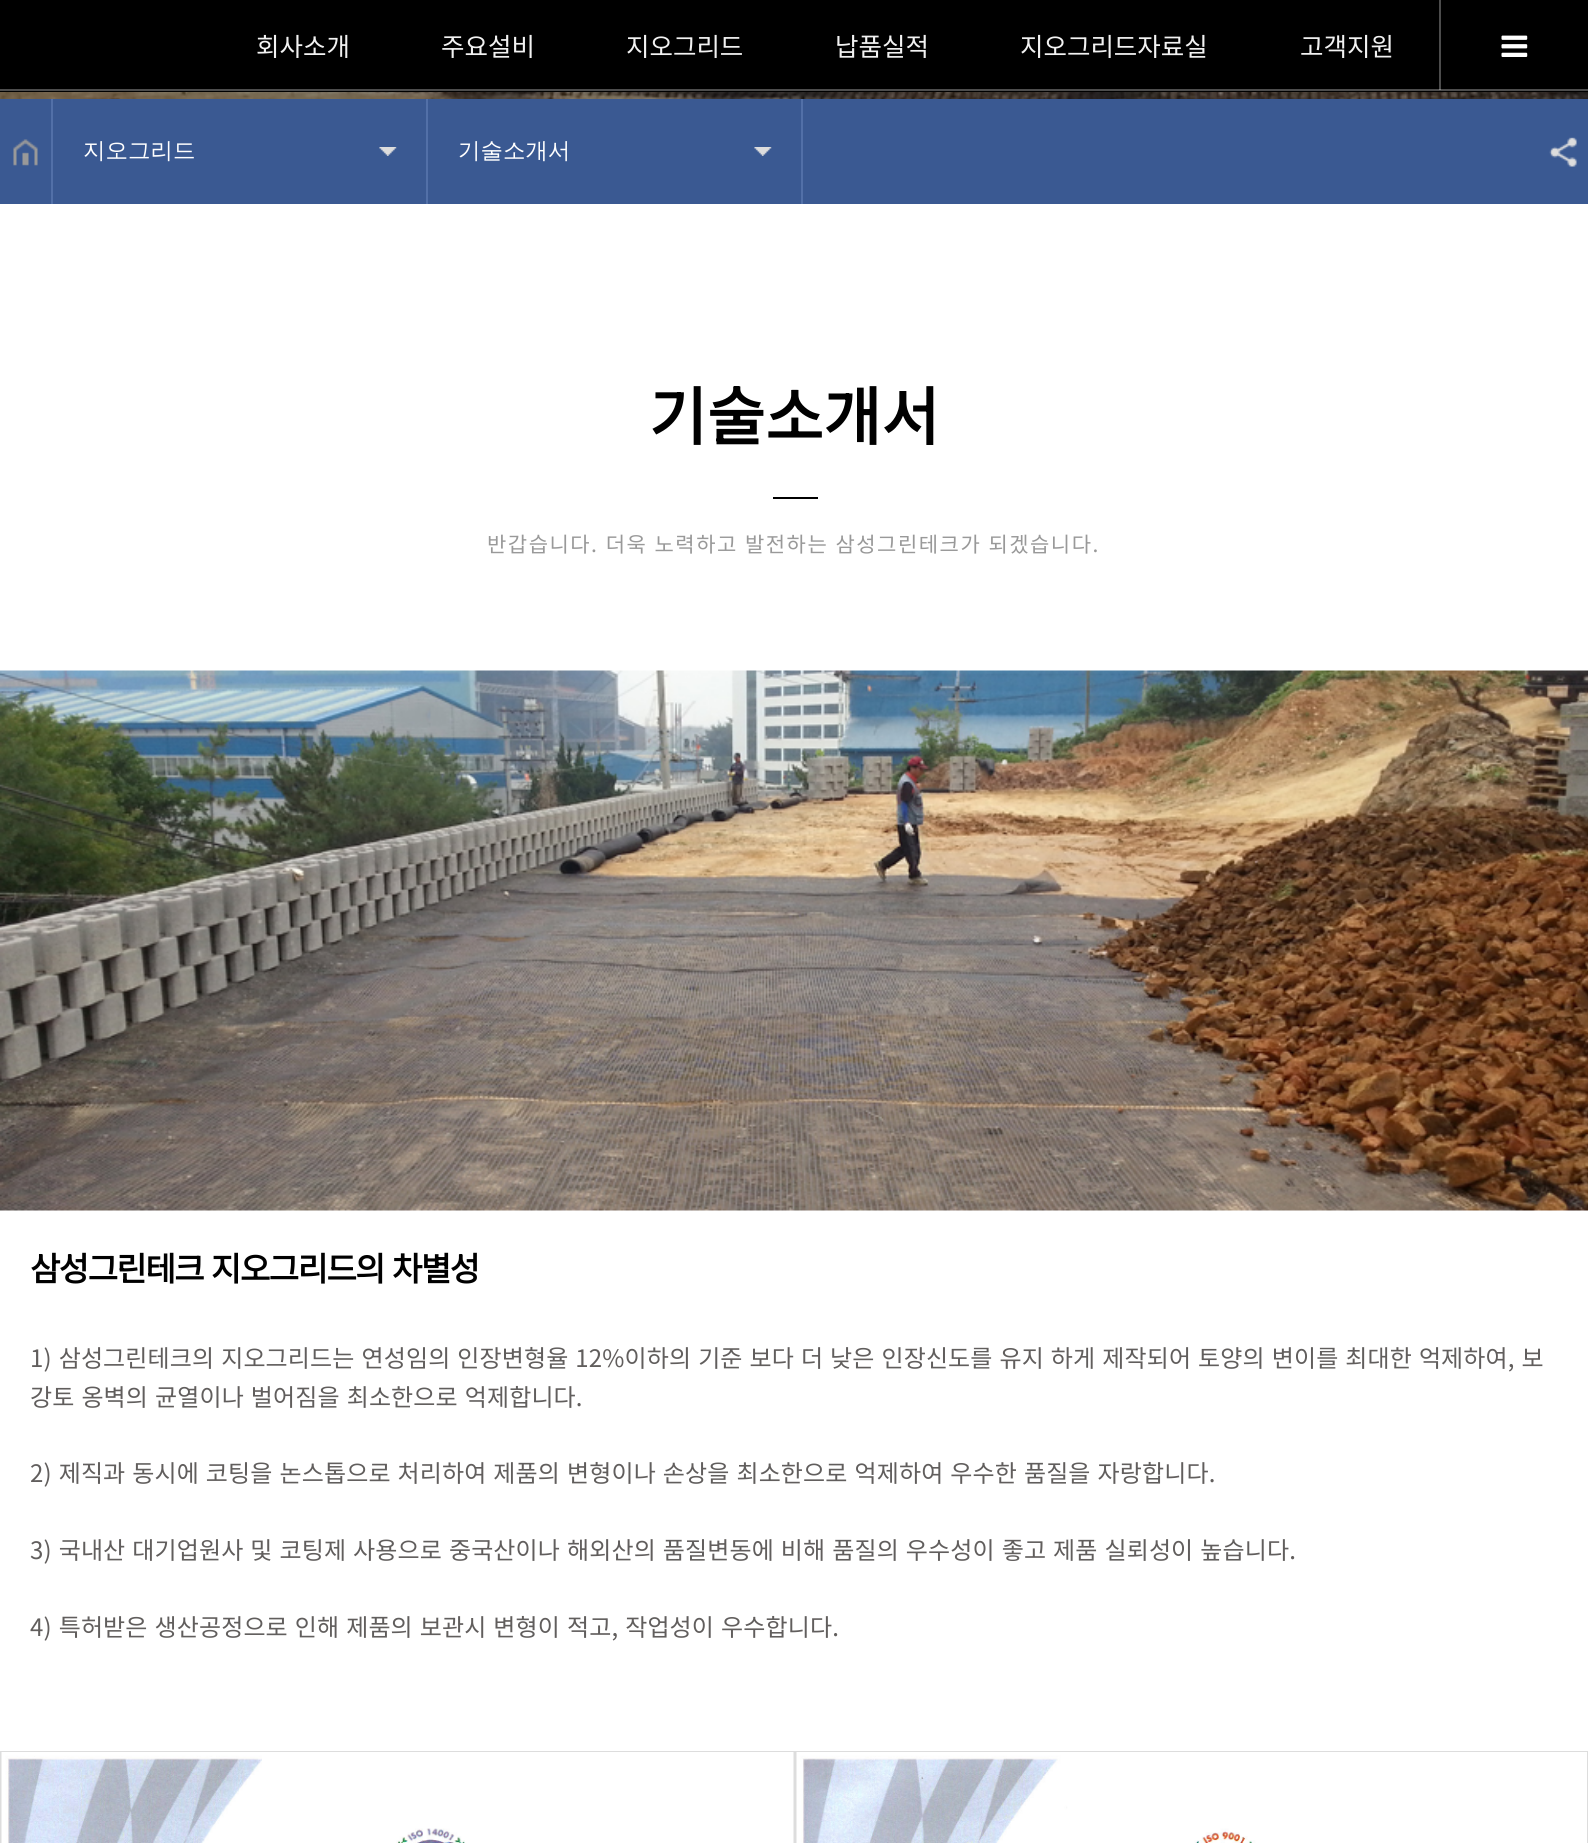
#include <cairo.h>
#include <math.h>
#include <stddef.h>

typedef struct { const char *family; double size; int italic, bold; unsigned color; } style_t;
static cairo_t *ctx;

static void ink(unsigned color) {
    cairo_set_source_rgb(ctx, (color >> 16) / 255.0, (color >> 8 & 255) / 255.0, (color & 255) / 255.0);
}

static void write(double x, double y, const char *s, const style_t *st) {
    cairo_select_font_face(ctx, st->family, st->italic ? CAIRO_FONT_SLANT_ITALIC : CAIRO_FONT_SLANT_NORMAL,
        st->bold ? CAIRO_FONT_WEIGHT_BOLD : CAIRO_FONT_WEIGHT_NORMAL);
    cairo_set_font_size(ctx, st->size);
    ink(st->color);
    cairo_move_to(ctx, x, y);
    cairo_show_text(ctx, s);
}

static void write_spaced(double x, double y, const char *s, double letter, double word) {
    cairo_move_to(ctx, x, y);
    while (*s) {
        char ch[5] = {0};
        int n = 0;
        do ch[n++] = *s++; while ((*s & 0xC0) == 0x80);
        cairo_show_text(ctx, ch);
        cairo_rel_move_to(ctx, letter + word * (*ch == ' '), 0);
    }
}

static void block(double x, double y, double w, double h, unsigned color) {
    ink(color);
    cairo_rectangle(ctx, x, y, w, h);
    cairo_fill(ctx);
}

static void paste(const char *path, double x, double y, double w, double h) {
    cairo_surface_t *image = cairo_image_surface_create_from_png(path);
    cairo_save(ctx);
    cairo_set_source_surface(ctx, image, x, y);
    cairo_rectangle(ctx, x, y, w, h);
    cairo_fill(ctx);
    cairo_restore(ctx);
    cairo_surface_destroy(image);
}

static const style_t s1 = {"Noto Sans KR Thin", 25.5, 0, 0, 0xf2f2f2};
static const style_t s2 = {"WenQuanYi Zen Hei Medium", 22.5, 0, 0, 0xffffff};

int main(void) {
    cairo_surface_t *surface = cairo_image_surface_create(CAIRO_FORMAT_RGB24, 1588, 1843);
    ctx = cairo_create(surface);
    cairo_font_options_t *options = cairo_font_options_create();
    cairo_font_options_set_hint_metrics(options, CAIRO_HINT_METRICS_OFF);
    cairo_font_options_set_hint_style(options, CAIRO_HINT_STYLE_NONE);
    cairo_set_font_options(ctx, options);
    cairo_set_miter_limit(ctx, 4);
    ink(0xffffff);
    cairo_paint(ctx);
    block(0, 0, 1588, 92, 0x000000);
    block(0, 89, 1588, 2, 0x4d4d4d);
    write(256, 56, "회사소개", &s1);
    write(441, 56, "주요설비", &s1);
    write(626, 56, "지오그리드", &s1);
    write(835, 56, "납품실적", &s1);
    write(1020, 56, "지오그리드자료실", &s1);
    write(1300, 56, "고객지원", &s1);
    cairo_set_source_rgba(ctx, 1, 1, 1, 0.3);
    cairo_rectangle(ctx, 1439, 0, 2, 90);
    cairo_fill(ctx);
    paste("pic1.png", 1501, 35, 27, 22);
    paste("pic2.png", 0, 92, 1588, 7);
    block(0, 99, 1588, 105, 0x3a5992);
    paste("pic3.png", 13, 139, 25, 27);
    block(51, 99, 2, 105, 0x5270a8);
    paste("pic4.png", 379, 147, 18, 9);
    block(426, 99, 2, 105, 0x5270a8);
    write(83, 158, "지오그리드", &s2);
    paste("pic5.png", 754, 147, 18, 9);
    block(801, 99, 2, 105, 0x5270a8);
    write(458, 158, "기술소개서", &s2);
    paste("pic6.png", 1549, 137, 28, 30);
    cairo_select_font_face(ctx, "Noto Sans KR", CAIRO_FONT_SLANT_NORMAL, CAIRO_FONT_WEIGHT_BOLD);
    cairo_set_font_size(ctx, 63);
    ink(0x000000);
    write_spaced(649, 440, "기술소개서", 0.15, 0);
    block(773, 497, 45, 2, 0x000000);
    cairo_select_font_face(ctx, "Noto Sans KR Thin", CAIRO_FONT_SLANT_NORMAL, CAIRO_FONT_WEIGHT_NORMAL);
    cairo_set_font_size(ctx, 21);
    ink(0x999999);
    write_spaced(487, 552, "반갑습니다. 더욱 노력하고 발전하는 삼성그린테크가 되겠습니다.", 1.5, 1);
    paste("pic7.png", 0, 670, 1588, 541);
    cairo_select_font_face(ctx, "Noto Sans KR", CAIRO_FONT_SLANT_NORMAL, CAIRO_FONT_WEIGHT_BOLD);
    cairo_set_font_size(ctx, 33);
    ink(0x000000);
    write_spaced(30, 1281, "삼성그린테크 지오그리드의 차별성", -1.5, 2);
    cairo_select_font_face(ctx, "Noto Sans KR Thin", CAIRO_FONT_SLANT_NORMAL, CAIRO_FONT_WEIGHT_NORMAL);
    cairo_set_font_size(ctx, 24);
    ink(0x615e5d);
    write_spaced(30, 1367, "1) 삼성그린테크의 지오그리드는 연성임의 인장변형율 12%이하의 기준 보다 더 낮은 인장신도를 유지 하게 제작되어 토양의 변이를 최대한 억제하여, 보", 0.15, 1.4);
    write_spaced(30, 1406, "강토 옹벽의 균열이나 벌어짐을 최소한으로 억제합니다.", 0.15, 1.4);
    write_spaced(30, 1482, "2) 제직과 동시에 코팅을 논스톱으로 처리하여 제품의 변형이나 손상을 최소한으로 억제하여 우수한 품질을 자랑합니다.", 0.15, 1.4);
    write_spaced(30, 1559, "3) 국내산 대기업원사 및 코팅제 사용으로 중국산이나 해외산의 품질변동에 비해 품질의 우수성이 좋고 제품 실뢰성이 높습니다.", 0.15, 1.4);
    write_spaced(30, 1636, "4) 특허받은 생산공정으로 인해 제품의 보관시 변형이 적고, 작업성이 우수합니다.", 0.15, 1.4);
    cairo_rectangle(ctx, 1, 1752, 793, 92);
    ink(0xdddddd);
    cairo_stroke(ctx);
    paste("pic8.png", 1, 1752, 793, 91);
    cairo_rectangle(ctx, 796, 1752, 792, 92);
    cairo_stroke(ctx);
    paste("pic9.png", 796, 1752, 791, 91);
    cairo_surface_write_to_png(surface, "screenshot.png");
    cairo_font_options_destroy(options);
    cairo_destroy(ctx);
    cairo_surface_destroy(surface);
    return 0;
}
